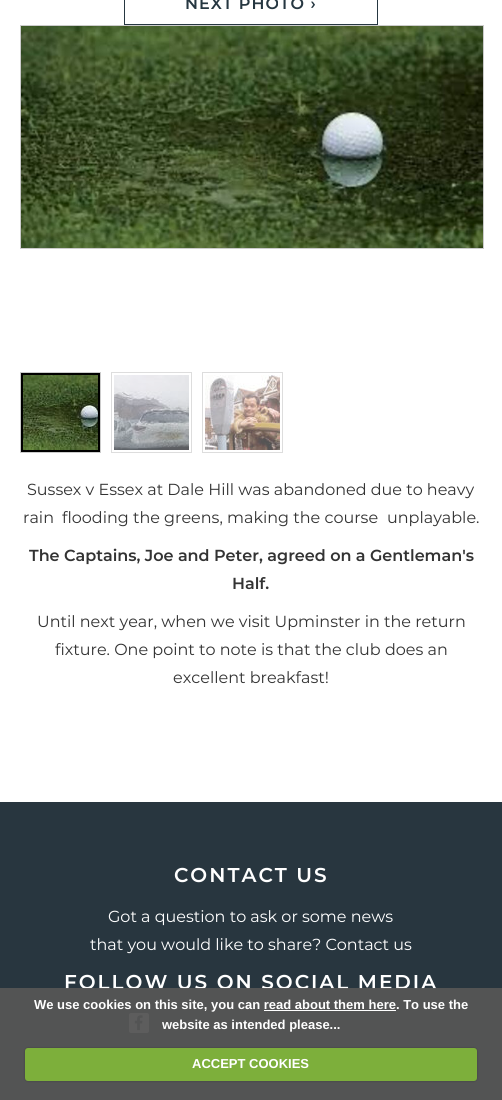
#include <cairo.h>
#include <math.h>
#include <stddef.h>

typedef struct { const char *family; double size; int italic, bold; unsigned color; } style_t;
static cairo_t *ctx;

static void ink(unsigned color) {
    cairo_set_source_rgb(ctx, (color >> 16) / 255.0, (color >> 8 & 255) / 255.0, (color & 255) / 255.0);
}

static void write(double x, double y, const char *s, const style_t *st) {
    cairo_select_font_face(ctx, st->family, st->italic ? CAIRO_FONT_SLANT_ITALIC : CAIRO_FONT_SLANT_NORMAL,
        st->bold ? CAIRO_FONT_WEIGHT_BOLD : CAIRO_FONT_WEIGHT_NORMAL);
    cairo_set_font_size(ctx, st->size);
    ink(st->color);
    cairo_move_to(ctx, x, y);
    cairo_show_text(ctx, s);
}

static void write_spaced(double x, double y, const char *s, double letter, double word) {
    cairo_move_to(ctx, x, y);
    while (*s) {
        char ch[5] = {0};
        int n = 0;
        do ch[n++] = *s++; while ((*s & 0xC0) == 0x80);
        cairo_show_text(ctx, ch);
        cairo_rel_move_to(ctx, letter + word * (*ch == ' '), 0);
    }
}

static void block(double x, double y, double w, double h, unsigned color) {
    ink(color);
    cairo_rectangle(ctx, x, y, w, h);
    cairo_fill(ctx);
}

static void round_path(double x, double y, double w, double h, double r) {
    cairo_new_sub_path(ctx);
    cairo_arc(ctx, x + w - r, y + h - r, r, 0, M_PI / 2);
    cairo_arc(ctx, x + r, y + h - r, r, M_PI / 2, M_PI);
    cairo_arc(ctx, x + r, y + r, r, M_PI, 1.5 * M_PI);
    cairo_arc(ctx, x + w - r, y + r, r, 1.5 * M_PI, 2 * M_PI);
    cairo_close_path(ctx);
}

static void blur_box(double x, double y, double w, double h, double r, double blur, double alpha) {
    cairo_push_group_with_content(ctx, CAIRO_CONTENT_ALPHA);
    cairo_set_operator(ctx, CAIRO_OPERATOR_SOURCE);
    for (int i = 15; i >= -15 && fmin(w, h) + blur * i / 3 > 0; i -= 2) {
        double e = blur * i / 6;
        cairo_set_source_rgba(ctx, 0, 0, 0, alpha * erfc((i - 1) / 8.5) / 2);
        round_path(x - e, y - e, w + 2 * e, h + 2 * e, fmax(0, fmin(r + e + blur * .6, fmin(w, h) / 2 + e)));
        cairo_fill(ctx);
    }
    cairo_pattern_t *soft = cairo_pop_group(ctx);
    cairo_mask(ctx, soft);
    cairo_pattern_destroy(soft);
}

static void paste(const char *path, double x, double y, double w, double h) {
    cairo_surface_t *image = cairo_image_surface_create_from_png(path);
    cairo_save(ctx);
    cairo_set_source_surface(ctx, image, x, y);
    cairo_rectangle(ctx, x, y, w, h);
    cairo_fill(ctx);
    cairo_restore(ctx);
    cairo_surface_destroy(image);
}

static const style_t s1 = {"Montserrat", 16, 0, 0, 0x333333};
static const style_t s2 = {"Montserrat SemiBold", 16, 0, 0, 0x333333};
static const style_t s3 = {"Montserrat", 16, 0, 0, 0xffffff};
static const style_t s4 = {"Liberation Sans", 13, 0, 1, 0xffffff};

int main(void) {
    cairo_surface_t *surface = cairo_image_surface_create(CAIRO_FORMAT_RGB24, 502, 1100);
    ctx = cairo_create(surface);
    cairo_font_options_t *options = cairo_font_options_create();
    cairo_font_options_set_hint_metrics(options, CAIRO_HINT_METRICS_OFF);
    cairo_font_options_set_hint_style(options, CAIRO_HINT_STYLE_NONE);
    cairo_set_font_options(ctx, options);
    cairo_set_miter_limit(ctx, 4);
    ink(0xffffff);
    cairo_paint(ctx);
    cairo_rectangle(ctx, 124.5, -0.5, 253, 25);
    ink(0x263741);
    cairo_set_line_width(ctx, 1);
    cairo_stroke(ctx);
    cairo_select_font_face(ctx, "Montserrat SemiBold", CAIRO_FONT_SLANT_NORMAL, CAIRO_FONT_WEIGHT_NORMAL);
    cairo_set_font_size(ctx, 16);
    write_spaced(185, 9, "NEXT PHOTO ›", 1, 0);
    cairo_rectangle(ctx, 20.5, 25.5, 463, 223);
    ink(0xcccccc);
    cairo_stroke(ctx);
    paste("pic1.png", 21, 26, 462, 222);
    ink(0x000000);
    cairo_rectangle(ctx, 20.5, 372.5, 80, 80);
    cairo_fill_preserve(ctx);
    ink(0xcccccc);
    cairo_stroke(ctx);
    paste("pic2.png", 23, 375, 75, 75);
    cairo_rectangle(ctx, 111.5, 372.5, 80, 80);
    ink(0xdddddd);
    cairo_stroke(ctx);
    paste("pic3.png", 114, 375, 75, 75);
    cairo_rectangle(ctx, 202.5, 372.5, 80, 80);
    cairo_stroke(ctx);
    paste("pic4.png", 205, 375, 75, 75);
    write(27, 495, "Sussex v Essex at Dale Hill was abandoned due to heavy", &s1);
    write(23, 523, "rain", &s1);
    write(62, 523, "flooding the greens, making the course", &s1);
    write(387, 523, "unplayable.", &s1);
    write(29, 561, "The Captains, Joe and Peter, agreed on a Gentleman's", &s2);
    write(232, 589, "Half.", &s2);
    write(37, 627, "Until next year, when we visit Upminster in the return", &s1);
    write(55, 655, "fixture. One point to note is that the club does an", &s1);
    write(173, 683, "excellent breakfast!", &s1);
    block(0, 802, 502, 298, 0x28363f);
    cairo_select_font_face(ctx, "Montserrat SemiBold", CAIRO_FONT_SLANT_NORMAL, CAIRO_FONT_WEIGHT_NORMAL);
    cairo_set_font_size(ctx, 20);
    ink(0xffffff);
    write_spaced(174, 882, "CONTACT US", 2, 0);
    write(108, 922, "Got a question to ask or some news", &s3);
    write(90, 950, "that you would like to share? Contact us", &s3);
    cairo_select_font_face(ctx, "Montserrat SemiBold", CAIRO_FONT_SLANT_NORMAL, CAIRO_FONT_WEIGHT_NORMAL);
    cairo_set_font_size(ctx, 20);
    write_spaced(64, 989, "FOLLOW US ON SOCIAL MEDIA", 2, 0);
    round_path(129, 1013, 20, 20, 2);
    cairo_fill(ctx);
    paste("pic5.png", 134, 1015, 9, 16);
    cairo_set_source_rgba(ctx, 0.337, 0.337, 0.337, 0.95);
    cairo_rectangle(ctx, 0, 988, 502, 112);
    cairo_fill(ctx);
    write(34, 1009, "We use cookies on this site, you can read about them here. To use the", &s4);
    block(264, 1010, 132, 1, 0xffffff);
    write(162, 1029, "website as intended please...", &s4);
    ink(0x000000);
    blur_box(25, 1048, 452, 33, 3, 1, 0.25);
    ink(0x7daf3b);
    round_path(25, 1048, 452, 33, 3);
    cairo_fill(ctx);
    write(192, 1068, "ACCEPT COOKIES", &s4);
    cairo_surface_write_to_png(surface, "screenshot.png");
    cairo_font_options_destroy(options);
    cairo_destroy(ctx);
    cairo_surface_destroy(surface);
    return 0;
}
